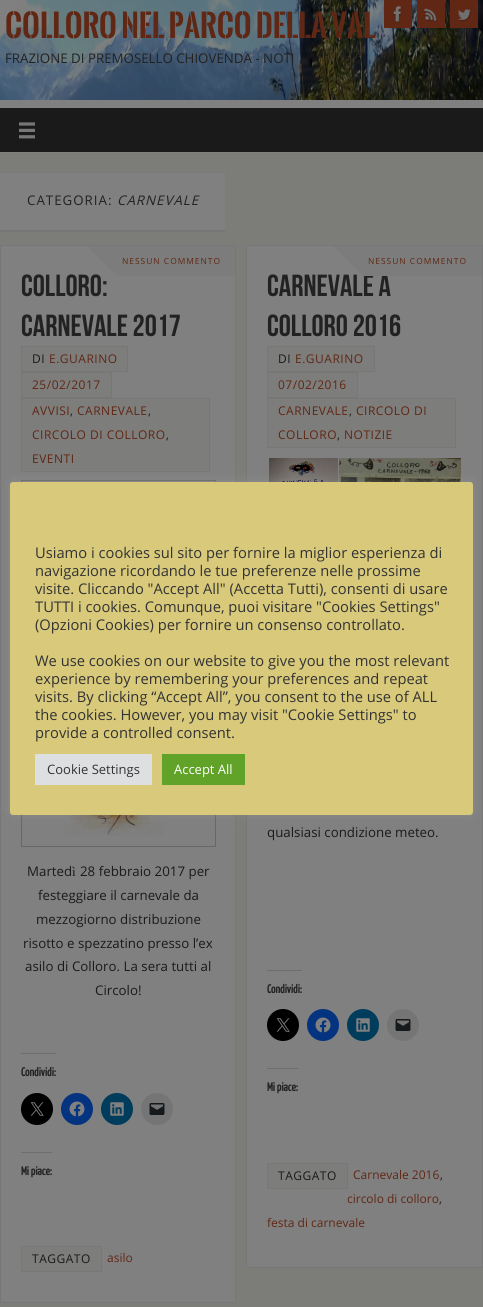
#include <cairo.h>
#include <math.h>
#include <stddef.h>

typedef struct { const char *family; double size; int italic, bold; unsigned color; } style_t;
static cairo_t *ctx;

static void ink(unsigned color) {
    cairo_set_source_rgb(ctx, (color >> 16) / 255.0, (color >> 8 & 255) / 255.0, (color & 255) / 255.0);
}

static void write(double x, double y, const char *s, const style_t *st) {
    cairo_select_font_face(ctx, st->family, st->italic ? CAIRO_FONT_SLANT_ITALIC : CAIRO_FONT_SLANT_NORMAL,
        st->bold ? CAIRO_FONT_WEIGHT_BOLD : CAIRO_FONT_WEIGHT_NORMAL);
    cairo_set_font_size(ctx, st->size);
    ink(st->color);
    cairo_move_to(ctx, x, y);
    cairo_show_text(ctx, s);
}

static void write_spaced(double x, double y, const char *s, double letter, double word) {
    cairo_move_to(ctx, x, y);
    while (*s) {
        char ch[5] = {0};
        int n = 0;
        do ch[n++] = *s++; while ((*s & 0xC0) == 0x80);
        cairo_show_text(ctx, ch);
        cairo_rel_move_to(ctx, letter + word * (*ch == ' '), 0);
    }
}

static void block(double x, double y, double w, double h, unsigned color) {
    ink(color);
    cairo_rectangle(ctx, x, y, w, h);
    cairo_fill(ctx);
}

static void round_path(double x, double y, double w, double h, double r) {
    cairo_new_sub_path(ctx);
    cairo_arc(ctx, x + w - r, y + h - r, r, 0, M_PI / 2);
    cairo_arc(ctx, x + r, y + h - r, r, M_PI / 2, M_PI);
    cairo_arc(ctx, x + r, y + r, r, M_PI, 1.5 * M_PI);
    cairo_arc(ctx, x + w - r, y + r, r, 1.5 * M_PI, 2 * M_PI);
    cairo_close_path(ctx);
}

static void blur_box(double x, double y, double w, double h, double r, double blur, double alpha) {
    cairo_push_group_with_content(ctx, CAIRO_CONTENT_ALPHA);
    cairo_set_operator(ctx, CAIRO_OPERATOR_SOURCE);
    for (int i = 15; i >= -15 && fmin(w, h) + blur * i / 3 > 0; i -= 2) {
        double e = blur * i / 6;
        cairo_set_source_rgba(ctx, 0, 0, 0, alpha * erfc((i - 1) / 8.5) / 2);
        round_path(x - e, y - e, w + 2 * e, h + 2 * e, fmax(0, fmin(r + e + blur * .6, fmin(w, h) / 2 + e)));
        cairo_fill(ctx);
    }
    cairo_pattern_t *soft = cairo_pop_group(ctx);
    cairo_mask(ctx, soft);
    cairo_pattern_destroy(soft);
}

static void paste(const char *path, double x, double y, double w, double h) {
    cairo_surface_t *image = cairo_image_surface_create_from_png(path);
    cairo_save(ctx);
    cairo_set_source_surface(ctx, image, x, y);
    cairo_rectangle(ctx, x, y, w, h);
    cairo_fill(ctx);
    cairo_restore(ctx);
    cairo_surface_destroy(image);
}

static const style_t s1 = {"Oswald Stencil", 30.4, 0, 1, 0x602714};
static const style_t s2 = {"Open Sans", 13.3, 0, 0, 0x222222};
static const style_t s3 = {"Liberation Serif", 13.3, 0, 0, 0x222222};
static const style_t s4 = {"Bebas Neue", 30.5, 0, 0, 0x222222};
static const style_t s5 = {"Open Sans", 13.3, 0, 0, 0x1a1a1a};
static const style_t s6 = {"Liberation Serif", 13.3, 0, 0, 0x1a1a1a};
static const style_t s7 = {"Yanone Kaffeesatz", 12, 0, 1, 0x222222};
static const style_t s8 = {"Open Sans", 12, 0, 0, 0x602714};
static const style_t s9 = {"Open Sans", 12, 0, 0, 0x1a1a1a};
static const style_t s10 = {"Open Sans", 14.7, 0, 0, 0x333333};
static const style_t s11 = {"Open Sans", 13, 0, 0, 0x333333};
static const style_t s12 = {"Open Sans", 13, 0, 0, 0xffffff};

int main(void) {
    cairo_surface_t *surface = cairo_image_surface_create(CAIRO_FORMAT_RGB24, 483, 1307);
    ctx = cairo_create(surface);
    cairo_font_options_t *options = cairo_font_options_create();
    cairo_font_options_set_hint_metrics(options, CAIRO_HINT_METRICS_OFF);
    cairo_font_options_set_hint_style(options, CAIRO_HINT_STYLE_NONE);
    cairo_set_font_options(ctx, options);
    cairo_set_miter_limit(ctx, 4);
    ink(0x7c7c79);
    cairo_paint(ctx);
    block(0, 100, 483, 53, 0x808080);
    paste("pic1.png", 0, 0, 483, 100);
    block(384, 0, 28, 28, 0x602714);
    paste("pic2.png", 393, 6, 9, 17);
    block(417, 0, 28, 28, 0x602714);
    paste("pic3.png", 423, 8, 14, 15);
    block(450, 0, 28, 28, 0x602714);
    paste("pic4.png", 458, 9, 14, 12);
    write(5, 38, "COLLORO NEL PARCO DELLA VAL", &s1);
    write(5, 63, "FRAZIONE DI PREMOSELLO CHIOVENDA - NOTI", &s2);
    write(429, 63, "À", &s3);
    block(0, 108, 483, 44, 0x1a1a1a);
    paste("pic5.png", 19, 122, 16, 17);
    block(0, 173, 225, 57, 0x808080);
    block(0, 230, 225, 2, 0x777777);
    cairo_select_font_face(ctx, "Open Sans", CAIRO_FONT_SLANT_NORMAL, CAIRO_FONT_WEIGHT_NORMAL);
    ink(0x222222);
    write_spaced(27, 205, "CATEGORIA:", 1, 0);
    cairo_select_font_face(ctx, "Open Sans", CAIRO_FONT_SLANT_ITALIC, CAIRO_FONT_WEIGHT_NORMAL);
    write_spaced(117, 205, "CARNEVALE", 1, 0);
    ink(0x808080);
    cairo_rectangle(ctx, 0.5, 245.5, 235, 1057);
    cairo_fill_preserve(ctx);
    ink(0x777777);
    cairo_set_line_width(ctx, 1);
    cairo_stroke(ctx);
    block(117, 246, 118, 30, 0x7c7c7c);
    write(21, 296, "Colloro:", &s4);
    ink(0x7c7c7c);
    cairo_new_path(ctx);
    cairo_move_to(ctx, 87, 246);
    cairo_line_to(ctx, 117, 246);
    cairo_line_to(ctx, 117, 276);
    cairo_close_path(ctx);
    cairo_fill(ctx);
    cairo_select_font_face(ctx, "Open Sans", CAIRO_FONT_SLANT_NORMAL, CAIRO_FONT_WEIGHT_NORMAL);
    cairo_set_font_size(ctx, 8.4);
    ink(0x602714);
    write_spaced(122, 264, "NESSUN COMMENTO", 1, 0);
    write(21, 336, "carnevale 2017", &s4);
    ink(0x7d7d7c);
    cairo_rectangle(ctx, 21.5, 346.5, 106, 25);
    cairo_fill_preserve(ctx);
    ink(0x777777);
    cairo_stroke(ctx);
    cairo_select_font_face(ctx, "Open Sans", CAIRO_FONT_SLANT_NORMAL, CAIRO_FONT_WEIGHT_NORMAL);
    cairo_set_font_size(ctx, 12);
    ink(0x1a1a1a);
    write_spaced(32, 363, "DI", 0.5, 0);
    ink(0x602714);
    write_spaced(49, 363, "E.GUARINO", 0.5, 0);
    ink(0x7d7d7c);
    cairo_rectangle(ctx, 21.5, 372.5, 90, 25);
    cairo_fill_preserve(ctx);
    ink(0x777777);
    cairo_stroke(ctx);
    ink(0x602714);
    write_spaced(32, 389, "25/02/2017", 0.5, 0);
    ink(0x7d7d7c);
    cairo_rectangle(ctx, 21.5, 398.5, 188, 73);
    cairo_fill_preserve(ctx);
    ink(0x777777);
    cairo_stroke(ctx);
    ink(0x602714);
    write_spaced(32, 415, "AVVISI", 0.5, 0);
    ink(0x1a1a1a);
    write_spaced(70, 415, ",", 0.5, 0);
    ink(0x602714);
    write_spaced(77, 415, "CARNEVALE", 0.5, 0);
    ink(0x1a1a1a);
    write_spaced(148, 415, ",", 0.5, 0);
    ink(0x602714);
    write_spaced(32, 439, "CIRCOLO DI COLLORO", 0.5, 0);
    ink(0x1a1a1a);
    write_spaced(166, 439, ",", 0.5, 0);
    ink(0x602714);
    write_spaced(32, 463, "EVENTI", 0.5, 0);
    cairo_rectangle(ctx, 21.5, 480.5, 194, 366);
    ink(0x676767);
    cairo_stroke(ctx);
    paste("pic6.png", 32, 815, 173, 21);
    write(27, 876, "Marted", &s5);
    write(72, 876, "ì", &s6);
    write(80, 876, "28 febbraio 2017 per", &s5);
    write(38, 900, "festeggiare il carnevale da", &s5);
    write(36, 924, "mezzogiorno distribuzione", &s5);
    write(23, 948, "risotto e spezzatino presso l’ex", &s5);
    write(25, 971, "asilo di Colloro. La sera tutti al", &s5);
    write(95, 995, "Circolo!", &s5);
    block(21, 1053, 35, 1, 0x6e6e6f);
    write(21, 1076, "Condividi:", &s7);
    ink(0x000000);
    cairo_new_path(ctx);
    cairo_arc(ctx, 37, 1109, 16, 0, 2 * M_PI);
    cairo_fill(ctx);
    paste("pic7.png", 30, 1102, 14, 14);
    ink(0x043380);
    cairo_arc(ctx, 77, 1109, 16, 0, 2 * M_PI);
    cairo_fill(ctx);
    paste("pic8.png", 69, 1101, 16, 16);
    ink(0x003c5b);
    cairo_arc(ctx, 117, 1109, 16, 0, 2 * M_PI);
    cairo_fill(ctx);
    paste("pic9.png", 110, 1102, 14, 14);
    ink(0x757575);
    cairo_arc(ctx, 157, 1109, 16, 0, 2 * M_PI);
    cairo_fill(ctx);
    paste("pic10.png", 149, 1103, 16, 12);
    block(21, 1152, 31, 1, 0x6e6e6f);
    write(21, 1175, "Mi piace:", &s7);
    ink(0x7d7d7c);
    cairo_rectangle(ctx, 21.5, 1246.5, 80, 25);
    cairo_fill_preserve(ctx);
    ink(0x777777);
    cairo_stroke(ctx);
    cairo_select_font_face(ctx, "Open Sans", CAIRO_FONT_SLANT_NORMAL, CAIRO_FONT_WEIGHT_NORMAL);
    ink(0x1a1a1a);
    write_spaced(32, 1263, "TAGGATO", 0.5, 0);
    write(107, 1262, "asilo", &s8);
    ink(0x808080);
    cairo_rectangle(ctx, 246.5, 245.5, 236, 1022);
    cairo_fill_preserve(ctx);
    ink(0x777777);
    cairo_stroke(ctx);
    write(267, 296, "Carnevale a", &s4);
    block(363, 246, 119, 30, 0x7c7c7c);
    cairo_new_path(ctx);
    cairo_move_to(ctx, 333, 246);
    cairo_line_to(ctx, 363, 246);
    cairo_line_to(ctx, 363, 276);
    cairo_close_path(ctx);
    cairo_fill(ctx);
    cairo_select_font_face(ctx, "Open Sans", CAIRO_FONT_SLANT_NORMAL, CAIRO_FONT_WEIGHT_NORMAL);
    cairo_set_font_size(ctx, 8.4);
    ink(0x602714);
    write_spaced(368, 264, "NESSUN COMMENTO", 1, 0);
    write(267, 336, "Colloro 2016", &s4);
    ink(0x7d7d7c);
    cairo_rectangle(ctx, 267.5, 346.5, 107, 25);
    cairo_fill_preserve(ctx);
    ink(0x777777);
    cairo_stroke(ctx);
    cairo_select_font_face(ctx, "Open Sans", CAIRO_FONT_SLANT_NORMAL, CAIRO_FONT_WEIGHT_NORMAL);
    cairo_set_font_size(ctx, 12);
    ink(0x1a1a1a);
    write_spaced(278, 363, "DI", 0.5, 0);
    ink(0x602714);
    write_spaced(295, 363, "E.GUARINO", 0.5, 0);
    ink(0x7d7d7c);
    cairo_rectangle(ctx, 267.5, 372.5, 90, 25);
    cairo_fill_preserve(ctx);
    ink(0x777777);
    cairo_stroke(ctx);
    ink(0x602714);
    write_spaced(278, 389, "07/02/2016", 0.5, 0);
    ink(0x7d7d7c);
    cairo_rectangle(ctx, 267.5, 398.5, 188, 49);
    cairo_fill_preserve(ctx);
    ink(0x777777);
    cairo_stroke(ctx);
    ink(0x602714);
    write_spaced(278, 415, "CARNEVALE", 0.5, 0);
    ink(0x1a1a1a);
    write_spaced(349, 415, ",", 0.5, 0);
    ink(0x602714);
    write_spaced(356, 415, "CIRCOLO DI", 0.5, 0);
    write_spaced(278, 439, "COLLORO", 0.5, 0);
    ink(0x1a1a1a);
    write_spaced(337, 439, ",", 0.5, 0);
    ink(0x602714);
    write_spaced(344, 439, "NOTIZIE", 0.5, 0);
    paste("pic11.png", 269, 458, 69, 24);
    paste("pic12.png", 339, 458, 122, 24);
    write(267, 837, "qualsiasi condizione meteo.", &s5);
    block(267, 970, 35, 1, 0x6e6e6f);
    write(267, 993, "Condividi:", &s7);
    ink(0x000000);
    cairo_new_path(ctx);
    cairo_arc(ctx, 283, 1025, 16, 0, 2 * M_PI);
    cairo_fill(ctx);
    paste("pic7.png", 276, 1018, 14, 14);
    ink(0x043380);
    cairo_arc(ctx, 323, 1025, 16, 0, 2 * M_PI);
    cairo_fill(ctx);
    paste("pic8.png", 315, 1017, 16, 16);
    ink(0x003c5b);
    cairo_arc(ctx, 363, 1025, 16, 0, 2 * M_PI);
    cairo_fill(ctx);
    paste("pic9.png", 356, 1018, 14, 14);
    ink(0x757575);
    cairo_arc(ctx, 403, 1025, 16, 0, 2 * M_PI);
    cairo_fill(ctx);
    paste("pic10.png", 395, 1019, 16, 12);
    block(267, 1068, 31, 1, 0x6e6e6f);
    write(267, 1091, "Mi piace:", &s7);
    ink(0x7d7d7c);
    cairo_rectangle(ctx, 267.5, 1163.5, 80, 25);
    cairo_fill_preserve(ctx);
    ink(0x777777);
    cairo_stroke(ctx);
    cairo_select_font_face(ctx, "Open Sans", CAIRO_FONT_SLANT_NORMAL, CAIRO_FONT_WEIGHT_NORMAL);
    ink(0x1a1a1a);
    write_spaced(278, 1180, "TAGGATO", 0.5, 0);
    write(353, 1179, "Carnevale 2016", &s8);
    write(440, 1179, ",", &s9);
    write(347, 1203, "circolo di colloro", &s8);
    write(439, 1203, ",", &s9);
    write(267, 1227, "festa di carnevale", &s8);
    ink(0xacabab);
    blur_box(10, 481, 463, 333, 3, 5, 0.3);
    ink(0xd8c97b);
    round_path(10, 482, 463, 333, 3);
    cairo_fill(ctx);
    write(35, 558, "Usiamo i cookies sul sito per fornire la miglior esperienza di", &s10);
    write(35, 576, "navigazione ricordando le tue preferenze nelle prossime", &s10);
    write(35, 594, "visite. Cliccando \"Accept All\" (Accetta Tutti), consenti di usare", &s10);
    write(35, 612, "TUTTI i cookies. Comunque, puoi visitare \"Cookies Settings\"", &s10);
    write(35, 630, "(Opzioni Cookies) per fornire un consenso controllato.", &s10);
    write(35, 666, "We use cookies on our website to give you the most relevant", &s10);
    write(35, 684, "experience by remembering your preferences and repeat", &s10);
    write(35, 702, "visits. By clicking “Accept All”, you consent to the use of ALL", &s10);
    write(35, 720, "the cookies. However, you may visit \"Cookie Settings\" to", &s10);
    write(35, 738, "provide a controlled consent.", &s10);
    block(35, 754, 117, 31, 0xdedfe0);
    write(47, 774, "Cookie Settings", &s11);
    block(162, 754, 83, 31, 0x61a229);
    write(174, 774, "Accept All", &s12);
    cairo_surface_write_to_png(surface, "screenshot.png");
    cairo_font_options_destroy(options);
    cairo_destroy(ctx);
    cairo_surface_destroy(surface);
    return 0;
}
